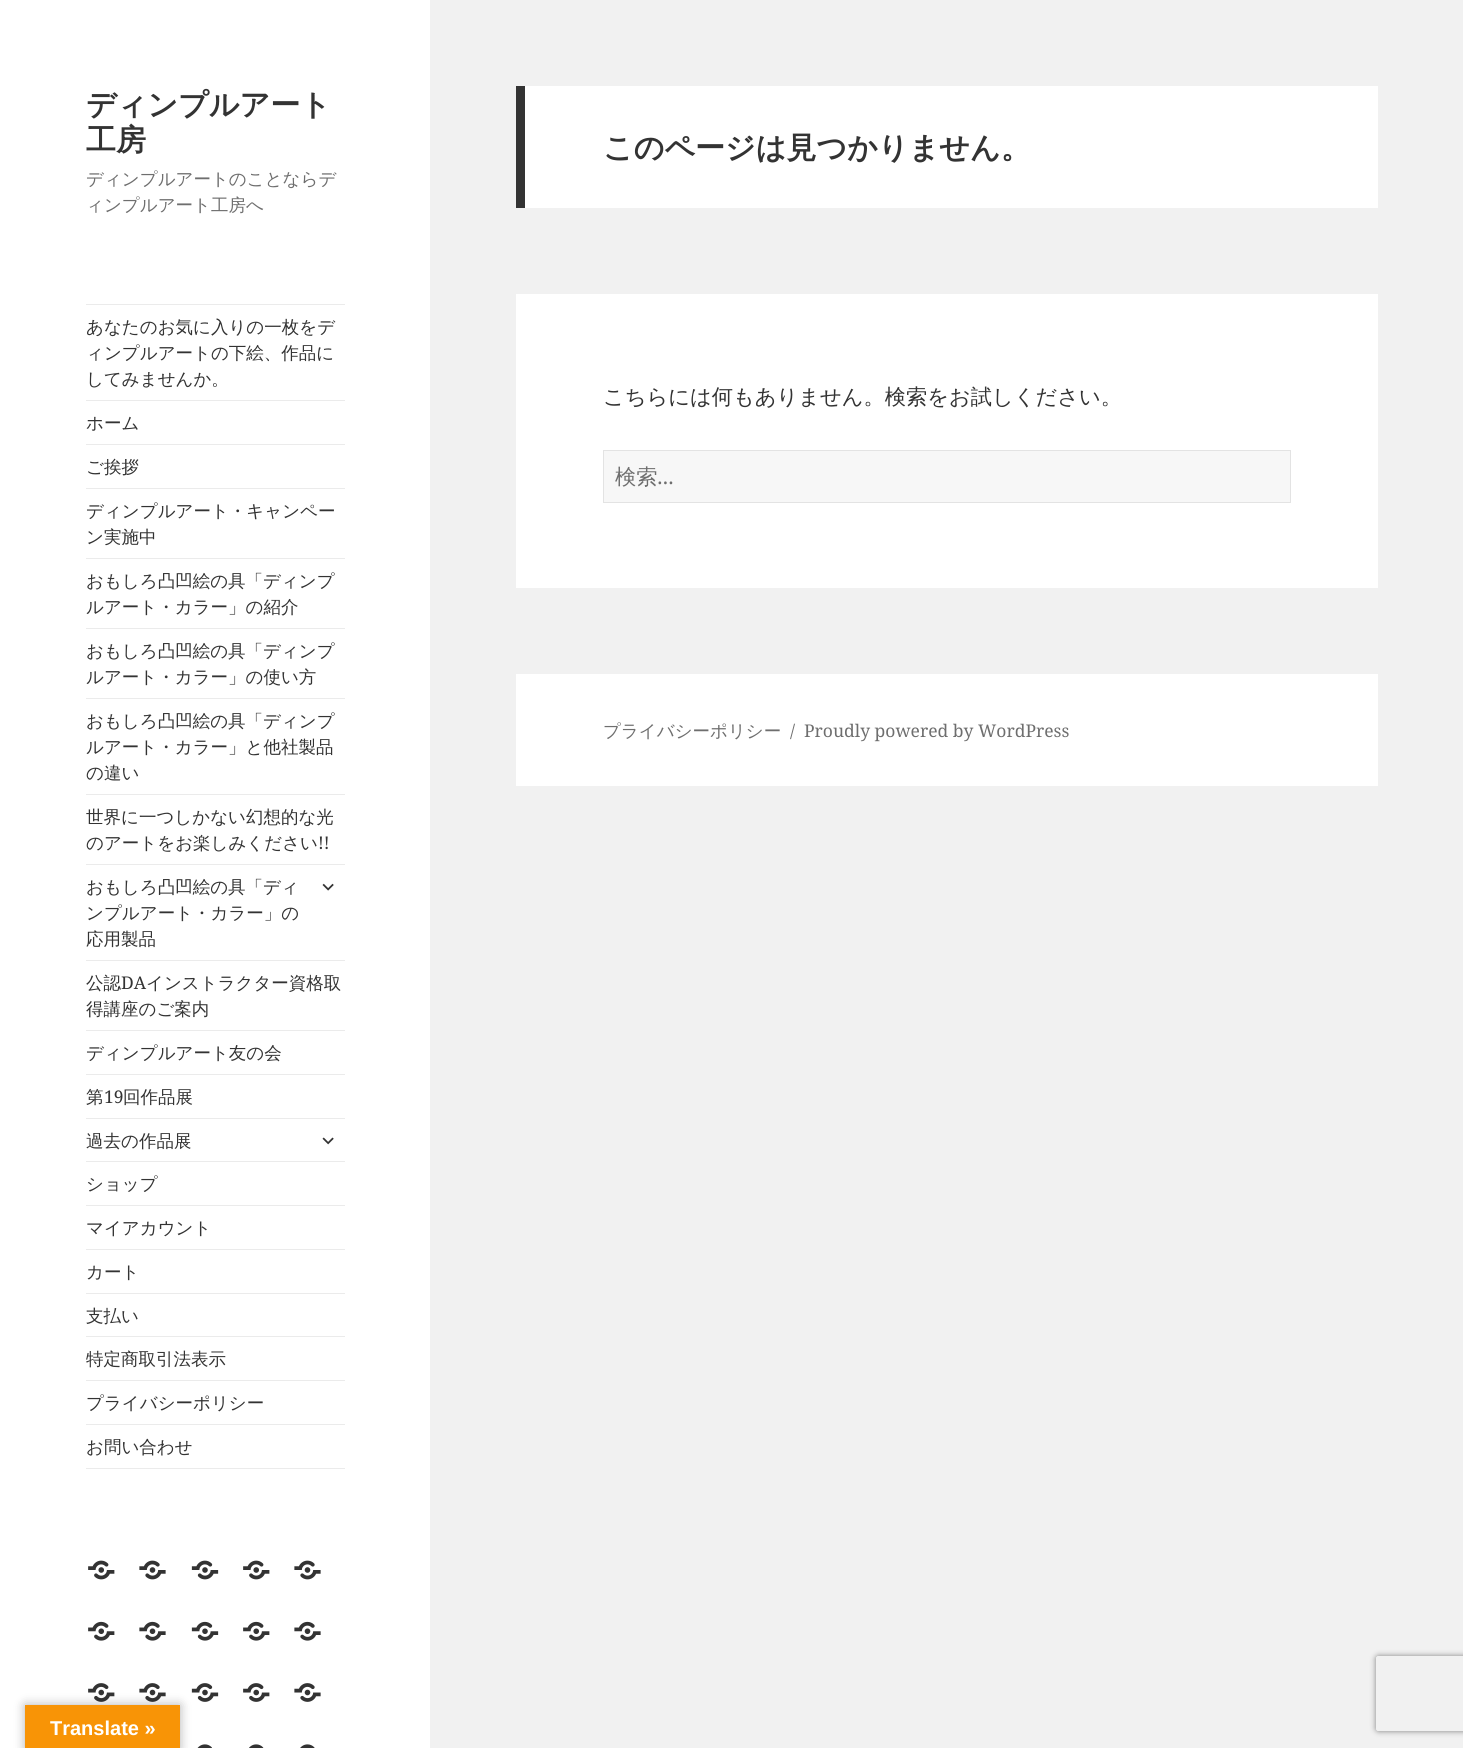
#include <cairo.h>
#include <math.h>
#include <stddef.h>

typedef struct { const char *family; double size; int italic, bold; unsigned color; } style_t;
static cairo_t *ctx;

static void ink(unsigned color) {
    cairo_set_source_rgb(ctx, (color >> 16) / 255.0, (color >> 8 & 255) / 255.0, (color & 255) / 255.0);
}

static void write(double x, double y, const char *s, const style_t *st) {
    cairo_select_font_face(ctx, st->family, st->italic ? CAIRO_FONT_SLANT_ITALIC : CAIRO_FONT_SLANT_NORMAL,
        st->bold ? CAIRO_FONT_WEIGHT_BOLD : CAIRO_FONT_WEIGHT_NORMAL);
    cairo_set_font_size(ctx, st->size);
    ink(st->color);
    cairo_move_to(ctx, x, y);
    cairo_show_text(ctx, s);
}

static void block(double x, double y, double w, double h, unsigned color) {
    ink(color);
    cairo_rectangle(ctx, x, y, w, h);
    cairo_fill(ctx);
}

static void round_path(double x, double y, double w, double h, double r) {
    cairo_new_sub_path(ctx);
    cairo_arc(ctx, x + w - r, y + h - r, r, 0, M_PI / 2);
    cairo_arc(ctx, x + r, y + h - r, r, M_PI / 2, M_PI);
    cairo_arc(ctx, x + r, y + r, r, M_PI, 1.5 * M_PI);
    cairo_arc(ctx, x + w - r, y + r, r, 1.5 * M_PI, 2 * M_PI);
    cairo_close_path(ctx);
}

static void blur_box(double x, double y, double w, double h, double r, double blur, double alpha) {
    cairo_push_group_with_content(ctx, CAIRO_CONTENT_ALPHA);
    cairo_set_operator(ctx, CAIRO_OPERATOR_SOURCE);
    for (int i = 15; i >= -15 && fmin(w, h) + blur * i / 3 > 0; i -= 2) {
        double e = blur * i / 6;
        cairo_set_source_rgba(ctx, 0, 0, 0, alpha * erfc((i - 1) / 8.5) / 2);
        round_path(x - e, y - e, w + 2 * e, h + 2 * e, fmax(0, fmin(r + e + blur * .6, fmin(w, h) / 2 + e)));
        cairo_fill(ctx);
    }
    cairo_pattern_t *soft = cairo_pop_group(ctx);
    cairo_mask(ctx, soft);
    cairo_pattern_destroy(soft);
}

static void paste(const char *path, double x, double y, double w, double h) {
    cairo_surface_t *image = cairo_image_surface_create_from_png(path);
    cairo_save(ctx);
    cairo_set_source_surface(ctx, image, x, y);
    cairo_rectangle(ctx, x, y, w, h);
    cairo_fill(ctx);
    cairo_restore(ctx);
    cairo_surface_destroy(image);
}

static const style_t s1 = {"WenQuanYi Zen Hei", 30, 0, 1, 0x333333};
static const style_t s2 = {"WenQuanYi Zen Hei Medium", 17.5, 0, 0, 0x6e6e6e};
static const style_t s3 = {"WenQuanYi Zen Hei Medium", 17.5, 0, 0, 0x333333};
static const style_t s4 = {"Noto Serif", 17.5, 0, 0, 0x333333};
static const style_t s5 = {"WenQuanYi Zen Hei Medium", 21.25, 0, 0, 0x333333};
static const style_t s6 = {"WenQuanYi Zen Hei Medium", 21.25, 0, 0, 0x6e6e6e};
static const style_t s7 = {"Noto Sans", 21.25, 0, 0, 0x6e6e6e};
static const style_t s8 = {"Noto Serif", 17.5, 0, 0, 0x6e6e6e};
static const style_t s9 = {"Liberation Sans", 20, 0, 1, 0xffffff};

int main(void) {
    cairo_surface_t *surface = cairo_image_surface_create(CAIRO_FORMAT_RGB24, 1463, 1748);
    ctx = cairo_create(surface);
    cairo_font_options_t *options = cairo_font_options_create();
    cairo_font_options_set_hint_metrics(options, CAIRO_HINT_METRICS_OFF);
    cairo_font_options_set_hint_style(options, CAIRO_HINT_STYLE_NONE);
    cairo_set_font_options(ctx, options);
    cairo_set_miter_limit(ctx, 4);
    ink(0xf1f1f1);
    cairo_paint(ctx);
    block(0, 0, 430, 1748, 0xffffff);
    write(86, 115, "ディンプルアート", &s1);
    write(86, 150, "工房", &s1);
    write(86, 185, "ディンプルアートのことならデ", &s2);
    write(86, 211, "ィンプルアート工房へ", &s2);
    block(86, 304, 259, 1, 0xebebeb);
    block(86, 1468, 259, 1, 0xebebeb);
    write(86, 333, "あなたのお気に入りの一枚をデ", &s3);
    write(86, 359, "ィンプルアートの下絵、作品に", &s3);
    write(86, 385, "してみませんか。", &s3);
    block(86, 400, 259, 1, 0xebebeb);
    write(86, 429, "ホーム", &s3);
    block(86, 444, 259, 1, 0xebebeb);
    write(86, 473, "ご挨拶", &s3);
    block(86, 488, 259, 1, 0xebebeb);
    write(86, 517, "ディンプルアート・キャンペー", &s3);
    write(86, 543, "ン実施中", &s3);
    block(86, 558, 259, 1, 0xebebeb);
    write(86, 587, "おもしろ凸凹絵の具「ディンプ", &s3);
    write(86, 613, "ルアート・カラー」の紹介", &s3);
    block(86, 628, 259, 1, 0xebebeb);
    write(86, 657, "おもしろ凸凹絵の具「ディンプ", &s3);
    write(86, 683, "ルアート・カラー」の使い方", &s3);
    block(86, 698, 259, 1, 0xebebeb);
    write(86, 727, "おもしろ凸凹絵の具「ディンプ", &s3);
    write(86, 753, "ルアート・カラー」と他社製品", &s3);
    write(86, 779, "の違い", &s3);
    block(86, 794, 259, 1, 0xebebeb);
    write(86, 823, "世界に一つしかない幻想的な光", &s3);
    write(86, 849, "のアートをお楽しみください", &s3);
    write(318, 849, "!!", &s4);
    block(86, 864, 259, 1, 0xebebeb);
    write(86, 893, "おもしろ凸凹絵の具「ディ", &s3);
    write(86, 919, "ンプルアート・カラー」の", &s3);
    write(86, 945, "応用製品", &s3);
    paste("pic1.png", 322, 883, 12, 8);
    block(86, 960, 259, 1, 0xebebeb);
    write(86, 989, "公認", &s3);
    write(121, 989, "DA", &s4);
    write(146, 989, "インストラクター資格取", &s3);
    write(86, 1015, "得講座のご案内", &s3);
    block(86, 1030, 259, 1, 0xebebeb);
    write(86, 1059, "ディンプルアート友の会", &s3);
    block(86, 1074, 259, 1, 0xebebeb);
    write(86, 1103, "第", &s3);
    write(104, 1103, "19", &s4);
    write(123, 1103, "回作品展", &s3);
    block(86, 1118, 259, 1, 0xebebeb);
    write(86, 1147, "過去の作品展", &s3);
    paste("pic2.png", 322, 1137, 12, 8);
    block(86, 1161, 259, 1, 0xebebeb);
    write(86, 1190, "ショップ", &s3);
    block(86, 1205, 259, 1, 0xebebeb);
    write(86, 1234, "マイアカウント", &s3);
    block(86, 1249, 259, 1, 0xebebeb);
    write(86, 1278, "カート", &s3);
    block(86, 1293, 259, 1, 0xebebeb);
    write(86, 1322, "支払い", &s3);
    block(86, 1336, 259, 1, 0xebebeb);
    write(86, 1365, "特定商取引法表示", &s3);
    block(86, 1380, 259, 1, 0xebebeb);
    write(86, 1409, "プライバシーポリシー", &s3);
    block(86, 1424, 259, 1, 0xebebeb);
    write(86, 1453, "お問い合わせ", &s3);
    paste("pic3.png", 88, 1560, 27, 20);
    paste("pic4.png", 139, 1560, 27, 20);
    paste("pic5.png", 191, 1560, 28, 20);
    paste("pic3.png", 243, 1560, 27, 20);
    paste("pic4.png", 294, 1560, 27, 20);
    paste("pic6.png", 88, 1621, 27, 20);
    paste("pic7.png", 139, 1621, 27, 20);
    paste("pic8.png", 191, 1621, 28, 20);
    paste("pic6.png", 243, 1621, 27, 20);
    paste("pic7.png", 294, 1621, 27, 20);
    paste("pic9.png", 88, 1683, 27, 19);
    paste("pic10.png", 139, 1683, 27, 19);
    paste("pic11.png", 191, 1683, 28, 19);
    paste("pic9.png", 243, 1683, 27, 19);
    paste("pic10.png", 294, 1683, 27, 19);
    paste("pic12.png", 197, 1744, 15, 4);
    paste("pic13.png", 249, 1744, 15, 4);
    paste("pic14.png", 300, 1744, 15, 4);
    block(525, 86, 853, 122, 0xffffff);
    block(516, 86, 9, 122, 0x333333);
    write(603, 158, "このページは見つかりません。", &s1);
    block(516, 294, 862, 294, 0xffffff);
    write(603, 404, "こちらには何もありません。検索をお試しください。", &s5);
    ink(0xf7f7f7);
    cairo_rectangle(ctx, 603.5, 450.5, 687, 52);
    cairo_fill_preserve(ctx);
    ink(0xe3e3e3);
    cairo_set_line_width(ctx, 1);
    cairo_stroke(ctx);
    write(615, 484, "検索", &s6);
    write(657, 484, "…", &s7);
    block(516, 674, 862, 112, 0xffffff);
    write(603, 737, "プライバシーポリシー", &s2);
    write(790, 737, "/", &s8);
    write(804, 737, "Proudly powered by WordPress", &s8);
    ink(0x000000);
    blur_box(25, 1705, 155, 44, 0, 5.5, 0.3);
    block(25, 1705, 155, 43, 0xf89406);
    write(50, 1735, "Translate »", &s9);
    cairo_save(ctx);
    cairo_set_fill_rule(ctx, CAIRO_FILL_RULE_EVEN_ODD);
    cairo_new_path(ctx);
    cairo_move_to(ctx, 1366, 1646);
    cairo_line_to(ctx, 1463, 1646);
    cairo_line_to(ctx, 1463, 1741);
    cairo_line_to(ctx, 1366, 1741);
    cairo_close_path(ctx);
    cairo_move_to(ctx, 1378.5, 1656);
    cairo_line_to(ctx, 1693.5, 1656);
    cairo_curve_to(ctx, 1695, 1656, 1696, 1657, 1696, 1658.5);
    cairo_line_to(ctx, 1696, 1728.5);
    cairo_curve_to(ctx, 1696, 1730, 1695, 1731, 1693.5, 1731);
    cairo_line_to(ctx, 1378.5, 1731);
    cairo_curve_to(ctx, 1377, 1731, 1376, 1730, 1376, 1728.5);
    cairo_line_to(ctx, 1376, 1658.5);
    cairo_curve_to(ctx, 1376, 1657, 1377, 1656, 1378.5, 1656);
    cairo_close_path(ctx);
    cairo_clip(ctx);
    ink(0x808080);
    blur_box(1376, 1656, 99, 75, 2.5, 3, 1);
    cairo_restore(ctx);
    cairo_surface_write_to_png(surface, "screenshot.png");
    cairo_font_options_destroy(options);
    cairo_destroy(ctx);
    cairo_surface_destroy(surface);
    return 0;
}
